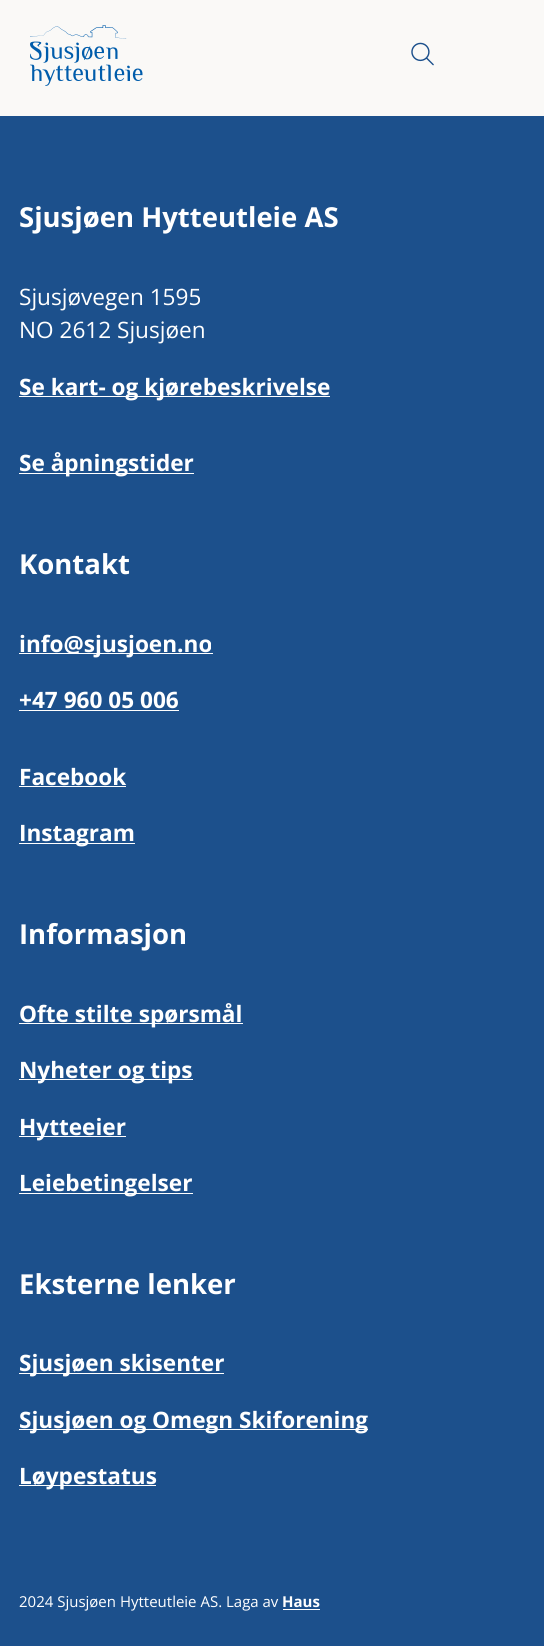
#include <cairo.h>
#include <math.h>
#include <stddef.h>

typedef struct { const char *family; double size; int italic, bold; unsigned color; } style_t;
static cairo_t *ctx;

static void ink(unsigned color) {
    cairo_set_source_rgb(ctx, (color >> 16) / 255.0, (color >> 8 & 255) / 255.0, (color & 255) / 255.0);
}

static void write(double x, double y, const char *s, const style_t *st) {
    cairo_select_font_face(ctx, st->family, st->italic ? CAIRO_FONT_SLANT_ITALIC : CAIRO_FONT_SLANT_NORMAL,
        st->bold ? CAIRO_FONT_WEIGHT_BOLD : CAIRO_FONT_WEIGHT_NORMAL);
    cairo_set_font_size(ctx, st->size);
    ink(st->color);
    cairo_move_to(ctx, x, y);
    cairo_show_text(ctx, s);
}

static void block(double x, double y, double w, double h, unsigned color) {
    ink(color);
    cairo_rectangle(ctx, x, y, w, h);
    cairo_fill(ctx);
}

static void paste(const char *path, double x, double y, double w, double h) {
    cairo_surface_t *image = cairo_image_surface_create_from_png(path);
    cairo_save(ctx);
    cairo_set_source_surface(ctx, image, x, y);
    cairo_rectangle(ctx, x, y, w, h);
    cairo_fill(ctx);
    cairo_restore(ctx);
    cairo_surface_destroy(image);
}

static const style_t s1 = {"Open Sans", 27.5, 0, 1, 0xffffff};
static const style_t s2 = {"Open Sans", 22.6, 0, 0, 0xffffff};
static const style_t s3 = {"Open Sans", 22.6, 0, 1, 0xffffff};
static const style_t s4 = {"Open Sans", 15, 0, 0, 0xffffff};
static const style_t s5 = {"Open Sans", 15, 0, 1, 0xffffff};

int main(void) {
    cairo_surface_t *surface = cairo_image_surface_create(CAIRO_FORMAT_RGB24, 544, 1646);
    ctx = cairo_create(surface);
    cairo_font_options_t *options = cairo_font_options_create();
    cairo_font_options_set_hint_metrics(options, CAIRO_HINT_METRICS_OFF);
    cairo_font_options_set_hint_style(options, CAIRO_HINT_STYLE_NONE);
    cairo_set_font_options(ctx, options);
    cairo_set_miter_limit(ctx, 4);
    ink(0x1c508c);
    cairo_paint(ctx);
    block(0, 0, 544, 116, 0xfaf9f7);
    paste("pic1.png", 30, 25, 113, 61);
    paste("pic2.png", 411, 42, 23, 24);
    write(19, 227, "Sjusjøen Hytteutleie AS", &s1);
    write(19, 305, "Sjusjøvegen 1595", &s2);
    write(19, 338, "NO 2612 Sjusjøen", &s2);
    block(19, 396, 311, 1, 0xffffff);
    write(19, 395, "Se kart- og kjørebeskrivelse", &s3);
    block(19, 473, 175, 1, 0xffffff);
    write(19, 471, "Se åpningstider", &s3);
    write(19, 574, "Kontakt", &s1);
    block(19, 653, 194, 1, 0xffffff);
    write(19, 652, "info@sjusjoen.no", &s3);
    write(19, 708, "+47 960 05 006", &s3);
    block(19, 710, 160, 1, 0xffffff);
    write(19, 785, "Facebook", &s3);
    block(19, 786, 107, 1, 0xffffff);
    block(19, 843, 116, 1, 0xffffff);
    write(19, 841, "Instagram", &s3);
    write(19, 944, "Informasjon", &s1);
    block(19, 1023, 224, 1, 0xffffff);
    write(19, 1022, "Ofte stilte spørsmål", &s3);
    block(19, 1079, 174, 1, 0xffffff);
    write(19, 1078, "Nyheter og tips", &s3);
    block(19, 1136, 107, 1, 0xffffff);
    write(19, 1135, "Hytteeier", &s3);
    block(19, 1193, 174, 1, 0xffffff);
    write(19, 1191, "Leiebetingelser", &s3);
    write(19, 1294, "Eksterne lenker", &s1);
    block(19, 1373, 205, 1, 0xffffff);
    write(19, 1371, "Sjusjøen skisenter", &s3);
    block(19, 1429, 349, 1, 0xffffff);
    write(19, 1428, "Sjusjøen og Omegn Skiforening", &s3);
    block(19, 1485, 137, 1, 0xffffff);
    write(19, 1484, "Løypestatus", &s3);
    write(19, 1607, "2024 Sjusjøen Hytteutleie AS. Laga av", &s4);
    write(282, 1607, "Haus", &s5);
    block(283, 1609, 37, 1, 0xffffff);
    cairo_surface_write_to_png(surface, "screenshot.png");
    cairo_font_options_destroy(options);
    cairo_destroy(ctx);
    cairo_surface_destroy(surface);
    return 0;
}
